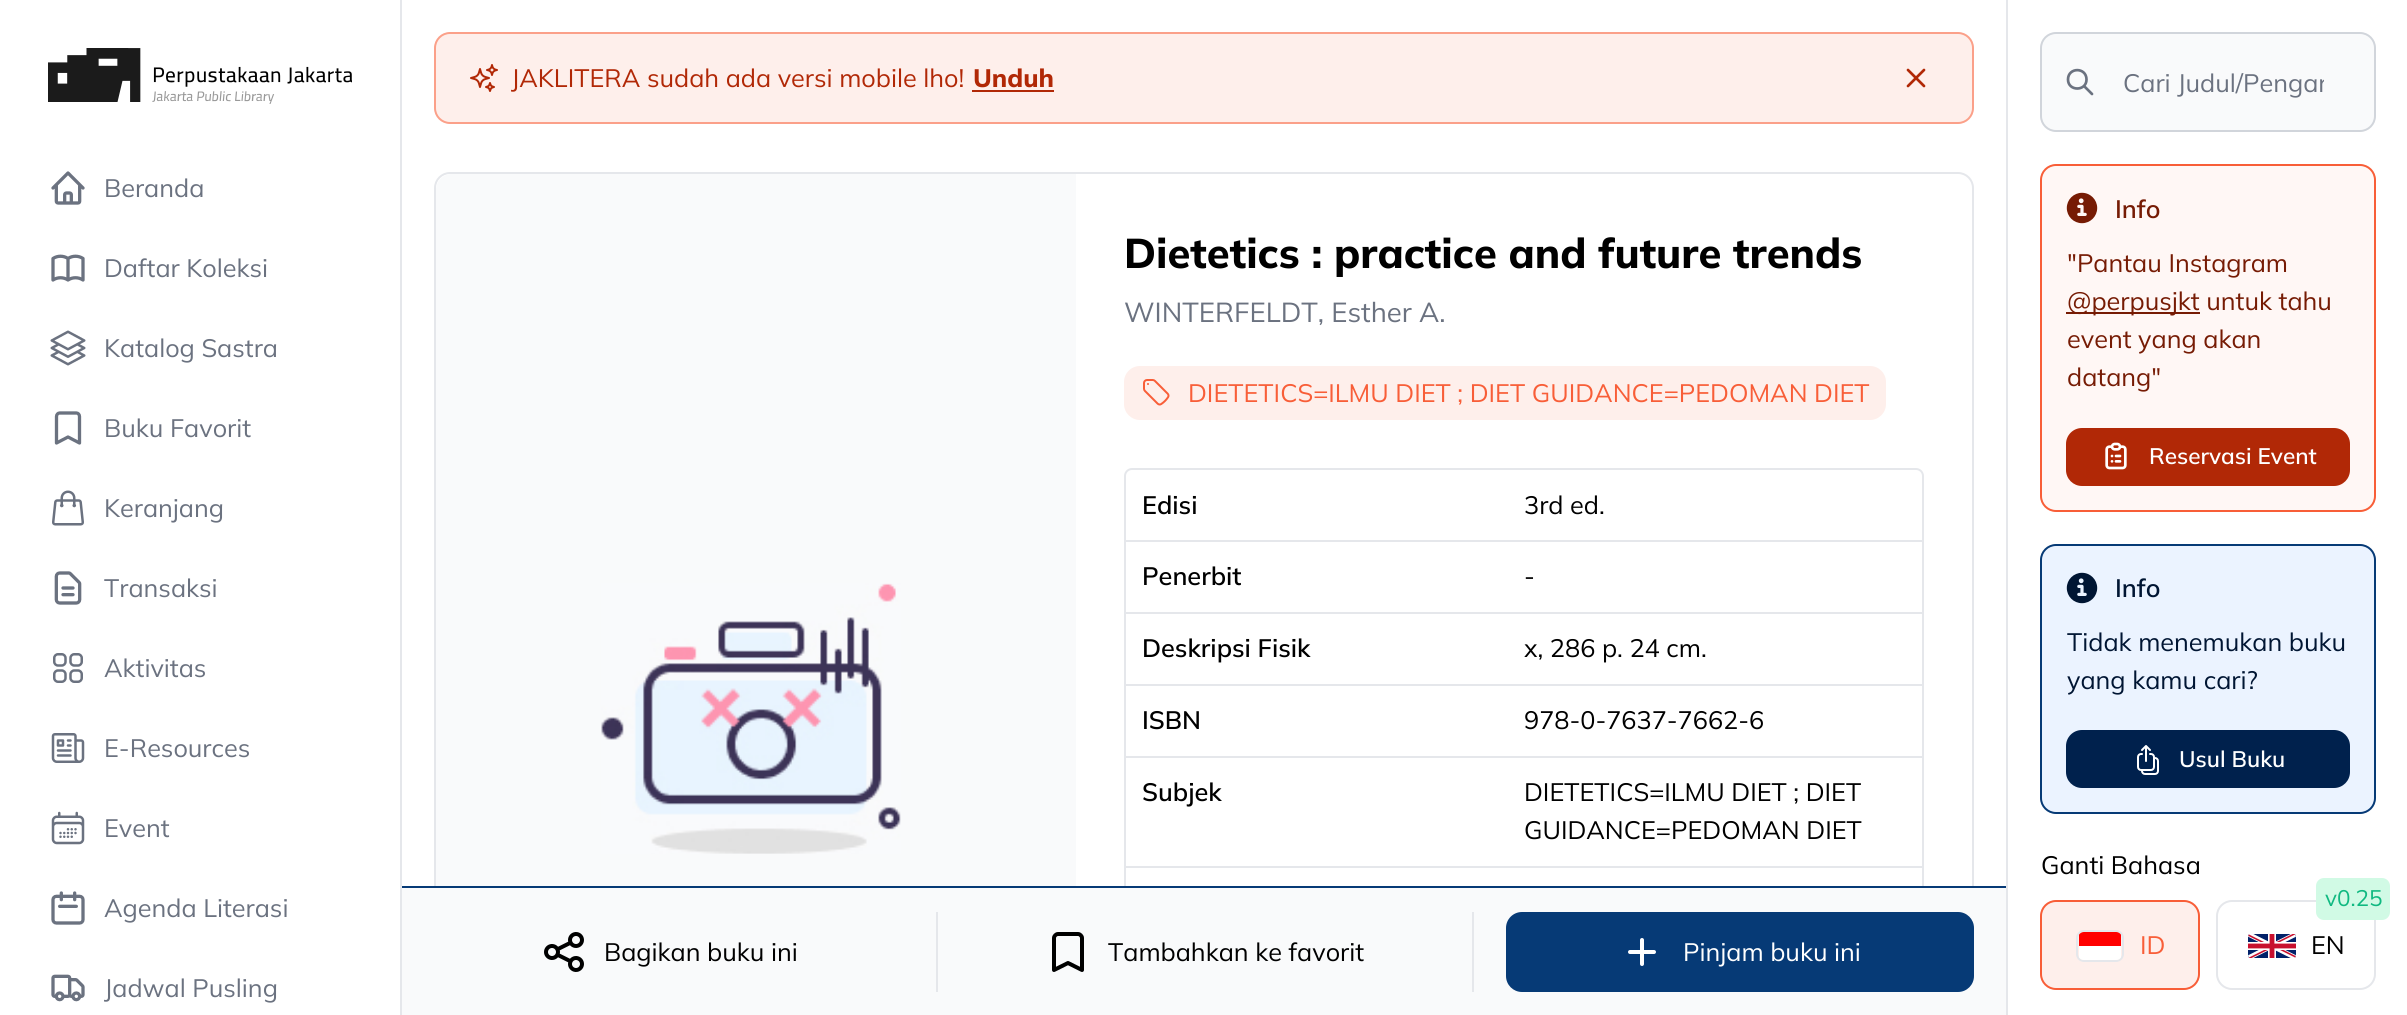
#include <cairo.h>
#include <math.h>
#include <stddef.h>

typedef struct { const char *family; double size; int italic, bold; unsigned color; } style_t;
static cairo_t *ctx;

static void ink(unsigned color) {
    cairo_set_source_rgb(ctx, (color >> 16) / 255.0, (color >> 8 & 255) / 255.0, (color & 255) / 255.0);
}

static void write(double x, double y, const char *s, const style_t *st) {
    cairo_select_font_face(ctx, st->family, st->italic ? CAIRO_FONT_SLANT_ITALIC : CAIRO_FONT_SLANT_NORMAL,
        st->bold ? CAIRO_FONT_WEIGHT_BOLD : CAIRO_FONT_WEIGHT_NORMAL);
    cairo_set_font_size(ctx, st->size);
    ink(st->color);
    cairo_move_to(ctx, x, y);
    cairo_show_text(ctx, s);
}

static void block(double x, double y, double w, double h, unsigned color) {
    ink(color);
    cairo_rectangle(ctx, x, y, w, h);
    cairo_fill(ctx);
}

static void round_path(double x, double y, double w, double h, double r) {
    cairo_new_sub_path(ctx);
    cairo_arc(ctx, x + w - r, y + h - r, r, 0, M_PI / 2);
    cairo_arc(ctx, x + r, y + h - r, r, M_PI / 2, M_PI);
    cairo_arc(ctx, x + r, y + r, r, M_PI, 1.5 * M_PI);
    cairo_arc(ctx, x + w - r, y + r, r, 1.5 * M_PI, 2 * M_PI);
    cairo_close_path(ctx);
}

static void paste(const char *path, double x, double y, double w, double h) {
    cairo_surface_t *image = cairo_image_surface_create_from_png(path);
    cairo_save(ctx);
    cairo_set_source_surface(ctx, image, x, y);
    cairo_rectangle(ctx, x, y, w, h);
    cairo_fill(ctx);
    cairo_restore(ctx);
    cairo_surface_destroy(image);
}

static const style_t s1 = {"Mulish", 25.25, 0, 0, 0x6b7280};
static const style_t s2 = {"Mulish", 25.25, 0, 0, 0xb12806};
static const style_t s3 = {"Mulish ExtraBold", 25.25, 0, 0, 0xb12806};
static const style_t s4 = {"Mulish ExtraBold", 41.6, 0, 0, 0x000000};
static const style_t s5 = {"Mulish", 27.5, 0, 0, 0x6b7280};
static const style_t s6 = {"Mulish", 25.25, 0, 0, 0xf85e38};
static const style_t s7 = {"Mulish SemiBold", 25.25, 0, 0, 0x000000};
static const style_t s8 = {"Mulish", 25.25, 0, 0, 0x000000};
static const style_t s9 = {"Mulish", 25.25, 0, 0, 0xffffff};
static const style_t s10 = {"Mulish SemiBold", 25.25, 0, 0, 0x761b04};
static const style_t s11 = {"Mulish", 25.25, 0, 0, 0x761b04};
static const style_t s12 = {"Mulish SemiBold", 22.5, 0, 0, 0xffffff};
static const style_t s13 = {"Mulish SemiBold", 25.25, 0, 0, 0x001533};
static const style_t s14 = {"Mulish", 25.25, 0, 0, 0x001533};
static const style_t s15 = {"Mulish", 22.5, 0, 0, 0x10b981};

int main(void) {
    cairo_surface_t *surface = cairo_image_surface_create(CAIRO_FORMAT_RGB24, 2407, 1015);
    ctx = cairo_create(surface);
    cairo_font_options_t *options = cairo_font_options_create();
    cairo_font_options_set_hint_metrics(options, CAIRO_HINT_METRICS_OFF);
    cairo_font_options_set_hint_style(options, CAIRO_HINT_STYLE_NONE);
    cairo_set_font_options(ctx, options);
    cairo_set_miter_limit(ctx, 4);
    ink(0xffffff);
    cairo_paint(ctx);
    block(400, 0, 2, 1015, 0xe5e7eb);
    paste("pic1.png", 48, 48, 304, 56);
    paste("pic2.png", 51, 171, 34, 34);
    write(104, 197, "Beranda", &s1);
    cairo_new_path(ctx);
    cairo_move_to(ctx, 68, 258.5);
    cairo_line_to(ctx, 68, 280);
    cairo_move_to(ctx, 68, 258.5);
    cairo_curve_to(ctx, 63.5, 255.5, 57.5, 255.5, 53, 258.5);
    cairo_line_to(ctx, 53, 280);
    cairo_curve_to(ctx, 57.5, 277, 63.5, 277, 68, 280);
    cairo_move_to(ctx, 68, 258.5);
    cairo_curve_to(ctx, 72.5, 255.5, 78.5, 255.5, 83, 258.5);
    cairo_line_to(ctx, 83, 280);
    cairo_curve_to(ctx, 78.5, 277, 72.5, 277, 68, 280);
    cairo_set_line_width(ctx, 3.3);
    cairo_set_line_cap(ctx, CAIRO_LINE_CAP_ROUND);
    cairo_set_line_join(ctx, CAIRO_LINE_JOIN_ROUND);
    cairo_stroke(ctx);
    write(104, 277, "Daftar Koleksi", &s1);
    paste("pic3.png", 50, 330, 36, 36);
    write(104, 357, "Katalog Sastra", &s1);
    cairo_new_path(ctx);
    cairo_move_to(ctx, 56.5, 416.5);
    cairo_curve_to(ctx, 56.5, 414.5, 58, 413, 59.5, 413);
    cairo_line_to(ctx, 76.5, 413);
    cairo_curve_to(ctx, 78, 413, 79.5, 414.5, 79.5, 416.5);
    cairo_line_to(ctx, 79.5, 443);
    cairo_line_to(ctx, 68, 437);
    cairo_line_to(ctx, 56.5, 443);
    cairo_close_path(ctx);
    cairo_stroke(ctx);
    write(104, 437, "Buku Favorit", &s1);
    paste("pic4.png", 52, 490, 32, 36);
    write(104, 517, "Keranjang", &s1);
    paste("pic5.png", 54, 571, 28, 34);
    write(104, 597, "Transaksi", &s1);
    paste("pic6.png", 53, 653, 30, 30);
    write(104, 677, "Aktivitas", &s1);
    paste("pic7.png", 51, 733, 34, 30);
    write(104, 757, "E-Resources", &s1);
    paste("pic8.png", 51, 811, 34, 34);
    write(104, 837, "Event", &s1);
    paste("pic9.png", 51, 891, 34, 34);
    write(104, 917, "Agenda Literasi", &s1);
    paste("pic10.png", 51, 974, 34, 28);
    write(104, 997, "Jadwal Pusling", &s1);
    ink(0xfeefeb);
    round_path(435, 33, 1538, 90, 15);
    cairo_fill_preserve(ctx);
    ink(0xfba089);
    cairo_set_line_width(ctx, 2);
    cairo_set_line_cap(ctx, CAIRO_LINE_CAP_BUTT);
    cairo_set_line_join(ctx, CAIRO_LINE_JOIN_MITER);
    cairo_stroke(ctx);
    paste("pic11.png", 470, 64, 28, 28);
    write(511, 87, "JAKLITERA sudah ada versi mobile lho!", &s2);
    write(973, 87, "Unduh", &s3);
    block(972, 90, 82, 2, 0xb12806);
    cairo_new_path(ctx);
    cairo_move_to(ctx, 1908, 86);
    cairo_line_to(ctx, 1924, 70);
    cairo_move_to(ctx, 1908, 70);
    cairo_line_to(ctx, 1924, 86);
    cairo_set_line_width(ctx, 2.7);
    cairo_set_line_cap(ctx, CAIRO_LINE_CAP_ROUND);
    cairo_set_line_join(ctx, CAIRO_LINE_JOIN_ROUND);
    cairo_stroke(ctx);
    round_path(435, 173, 1538, 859, 15);
    ink(0xe5e7eb);
    cairo_set_line_width(ctx, 2);
    cairo_set_line_cap(ctx, CAIRO_LINE_CAP_BUTT);
    cairo_set_line_join(ctx, CAIRO_LINE_JOIN_MITER);
    cairo_stroke(ctx);
    ink(0xf9fafb);
    cairo_new_path(ctx);
    cairo_move_to(ctx, 452, 174);
    cairo_line_to(ctx, 1076, 174);
    cairo_line_to(ctx, 1076, 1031);
    cairo_line_to(ctx, 436, 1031);
    cairo_line_to(ctx, 436, 190);
    cairo_curve_to(ctx, 436, 181, 443, 174, 452, 174);
    cairo_close_path(ctx);
    cairo_fill(ctx);
    paste("pic12.png", 601, 583, 300, 271);
    write(1124, 268, "Dietetics : practice and future trends", &s4);
    write(1124, 322, "WINTERFELDT, Esther A.", &s5);
    ink(0xfeefeb);
    round_path(1124, 366, 762, 54, 16);
    cairo_fill(ctx);
    paste("pic13.png", 1143, 379, 27, 27);
    write(1188, 402, "DIETETICS=ILMU DIET ; DIET GUIDANCE=PEDOMAN DIET", &s6);
    round_path(1125, 469, 798, 540, 7);
    ink(0xe5e7eb);
    cairo_stroke(ctx);
    write(1142, 514, "Edisi", &s7);
    write(1524, 514, "3rd ed.", &s8);
    block(1126, 540, 796, 2, 0xe5e7eb);
    write(1142, 585, "Penerbit", &s7);
    write(1524, 585, "-", &s8);
    block(1126, 612, 796, 2, 0xe5e7eb);
    write(1142, 657, "Deskripsi Fisik", &s7);
    write(1524, 657, "x, 286 p. 24 cm.", &s8);
    block(1126, 684, 796, 2, 0xe5e7eb);
    write(1142, 729, "ISBN", &s7);
    write(1524, 729, "978-0-7637-7662-6", &s8);
    block(1126, 756, 796, 2, 0xe5e7eb);
    write(1142, 801, "Subjek", &s7);
    write(1524, 801, "DIETETICS=ILMU DIET ; DIET", &s8);
    write(1524, 839, "GUIDANCE=PEDOMAN DIET", &s8);
    block(1126, 866, 796, 2, 0xe5e7eb);
    block(402, 888, 1604, 127, 0xf9fafb);
    block(402, 886, 1604, 2, 0x063a76);
    paste("pic14.png", 544, 932, 40, 40);
    write(604, 961, "Bagikan buku ini", &s8);
    block(936, 912, 2, 80, 0xe5e7eb);
    cairo_new_path(ctx);
    cairo_move_to(ctx, 1054, 938);
    cairo_curve_to(ctx, 1054, 936, 1056, 934, 1058, 934);
    cairo_line_to(ctx, 1078, 934);
    cairo_curve_to(ctx, 1080, 934, 1082, 936, 1082, 938);
    cairo_line_to(ctx, 1082, 970);
    cairo_line_to(ctx, 1068, 963);
    cairo_line_to(ctx, 1054, 970);
    cairo_close_path(ctx);
    ink(0x000000);
    cairo_set_line_width(ctx, 4);
    cairo_set_line_cap(ctx, CAIRO_LINE_CAP_ROUND);
    cairo_set_line_join(ctx, CAIRO_LINE_JOIN_ROUND);
    cairo_stroke(ctx);
    write(1108, 961, "Tambahkan ke favorit", &s8);
    block(1472, 912, 2, 80, 0xe5e7eb);
    ink(0x063a76);
    round_path(1506, 912, 468, 80, 16);
    cairo_fill(ctx);
    cairo_new_path(ctx);
    cairo_move_to(ctx, 1642, 940);
    cairo_line_to(ctx, 1642, 952);
    cairo_move_to(ctx, 1642, 952);
    cairo_line_to(ctx, 1642, 964);
    cairo_move_to(ctx, 1642, 952);
    cairo_line_to(ctx, 1654, 952);
    cairo_move_to(ctx, 1642, 952);
    cairo_line_to(ctx, 1630, 952);
    ink(0xffffff);
    cairo_stroke(ctx);
    write(1683, 961, "Pinjam buku ini", &s9);
    block(2006, 0, 2, 1015, 0xe5e7eb);
    ink(0xf9fafb);
    round_path(2041, 33, 334, 98, 15);
    cairo_fill_preserve(ctx);
    ink(0xd1d5db);
    cairo_set_line_width(ctx, 2);
    cairo_set_line_cap(ctx, CAIRO_LINE_CAP_BUTT);
    cairo_set_line_join(ctx, CAIRO_LINE_JOIN_MITER);
    cairo_stroke(ctx);
    cairo_new_path(ctx);
    cairo_move_to(ctx, 2092, 94);
    cairo_line_to(ctx, 2084, 86);
    cairo_move_to(ctx, 2086.5, 79.5);
    cairo_curve_to(ctx, 2086.5, 91.5, 2068, 91.5, 2068, 79.5);
    cairo_curve_to(ctx, 2068, 67, 2086.5, 67, 2086.5, 79.5);
    cairo_close_path(ctx);
    ink(0x6b7280);
    cairo_set_line_width(ctx, 2.7);
    cairo_set_line_cap(ctx, CAIRO_LINE_CAP_ROUND);
    cairo_set_line_join(ctx, CAIRO_LINE_JOIN_ROUND);
    cairo_stroke(ctx);
    cairo_save(ctx);
    cairo_rectangle(ctx, 2122, 66, 202, 32);
    cairo_clip(ctx);
    write(2123, 92, "Cari Judul/Pengar", &s1);
    cairo_restore(ctx);
    ink(0xfff7f5);
    round_path(2041, 165, 334, 346, 15);
    cairo_fill_preserve(ctx);
    ink(0xf85e38);
    cairo_set_line_width(ctx, 2);
    cairo_set_line_cap(ctx, CAIRO_LINE_CAP_BUTT);
    cairo_set_line_join(ctx, CAIRO_LINE_JOIN_MITER);
    cairo_stroke(ctx);
    paste("pic15.png", 2066, 192, 32, 32);
    write(2115, 218, "Info", &s10);
    write(2067, 272, "\"Pantau Instagram", &s11);
    block(2066, 312, 134, 2, 0x761b04);
    write(2067, 310, "@perpusjkt untuk tahu", &s11);
    write(2067, 348, "event yang akan", &s11);
    write(2067, 386, "datang\"", &s11);
    ink(0xb12806);
    round_path(2066, 428, 284, 58, 16);
    cairo_fill(ctx);
    paste("pic16.png", 2105, 442, 22, 28);
    write(2149, 464, "Reservasi Event", &s12);
    ink(0xebf3ff);
    round_path(2041, 545, 334, 268, 15);
    cairo_fill_preserve(ctx);
    ink(0x063a76);
    cairo_stroke(ctx);
    paste("pic17.png", 2066, 572, 32, 32);
    write(2115, 597, "Info", &s13);
    write(2067, 651, "Tidak menemukan buku", &s14);
    write(2067, 689, "yang kamu cari?", &s14);
    ink(0x00214d);
    round_path(2066, 730, 284, 58, 16);
    cairo_fill(ctx);
    paste("pic18.png", 2137, 745, 22, 30);
    write(2179, 767, "Usul Buku", &s12);
    write(2041, 874, "Ganti Bahasa", &s8);
    ink(0xfeefeb);
    round_path(2041, 901, 158, 88, 15);
    cairo_fill_preserve(ctx);
    ink(0xf85e38);
    cairo_stroke(ctx);
    round_path(2077, 931, 46, 30, 7);
    ink(0xe5e7eb);
    cairo_stroke(ctx);
    cairo_save(ctx);
    round_path(2078, 932, 44, 28, 6);
    cairo_clip(ctx);
    block(2079, 932, 42, 28, 0xffffff);
    block(2079, 932, 42, 14, 0xff0000);
    cairo_restore(ctx);
    write(2140, 954, "ID", &s6);
    round_path(2217, 901, 158, 88, 15);
    ink(0xe5e7eb);
    cairo_stroke(ctx);
    ink(0xd1fae5);
    round_path(2316, 878, 74, 42, 8);
    cairo_fill(ctx);
    write(2325, 906, "v0.25", &s15);
    paste("pic19.png", 2248, 934, 48, 24);
    write(2311, 954, "EN", &s8);
    cairo_surface_write_to_png(surface, "screenshot.png");
    cairo_font_options_destroy(options);
    cairo_destroy(ctx);
    cairo_surface_destroy(surface);
    return 0;
}
